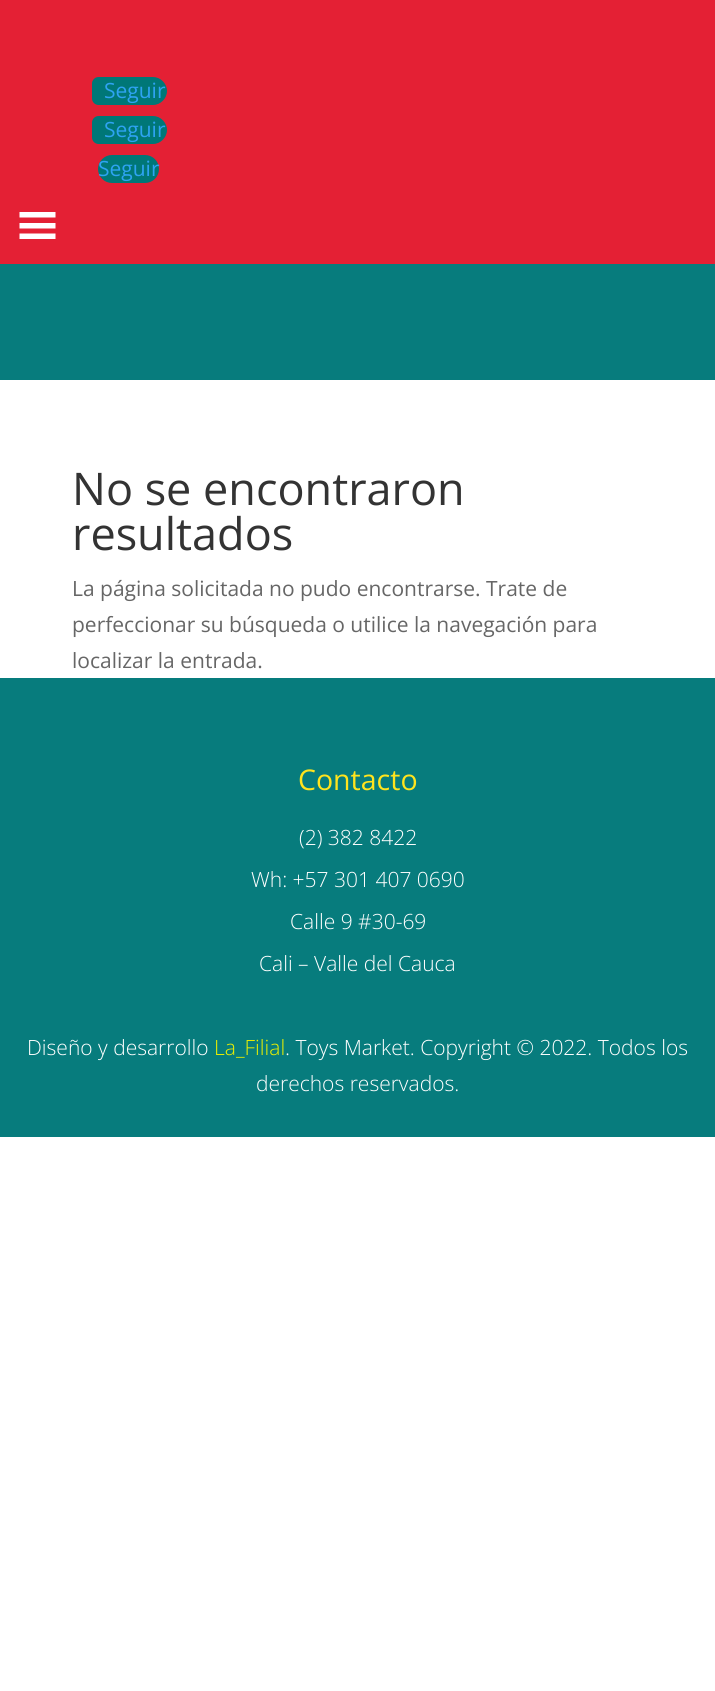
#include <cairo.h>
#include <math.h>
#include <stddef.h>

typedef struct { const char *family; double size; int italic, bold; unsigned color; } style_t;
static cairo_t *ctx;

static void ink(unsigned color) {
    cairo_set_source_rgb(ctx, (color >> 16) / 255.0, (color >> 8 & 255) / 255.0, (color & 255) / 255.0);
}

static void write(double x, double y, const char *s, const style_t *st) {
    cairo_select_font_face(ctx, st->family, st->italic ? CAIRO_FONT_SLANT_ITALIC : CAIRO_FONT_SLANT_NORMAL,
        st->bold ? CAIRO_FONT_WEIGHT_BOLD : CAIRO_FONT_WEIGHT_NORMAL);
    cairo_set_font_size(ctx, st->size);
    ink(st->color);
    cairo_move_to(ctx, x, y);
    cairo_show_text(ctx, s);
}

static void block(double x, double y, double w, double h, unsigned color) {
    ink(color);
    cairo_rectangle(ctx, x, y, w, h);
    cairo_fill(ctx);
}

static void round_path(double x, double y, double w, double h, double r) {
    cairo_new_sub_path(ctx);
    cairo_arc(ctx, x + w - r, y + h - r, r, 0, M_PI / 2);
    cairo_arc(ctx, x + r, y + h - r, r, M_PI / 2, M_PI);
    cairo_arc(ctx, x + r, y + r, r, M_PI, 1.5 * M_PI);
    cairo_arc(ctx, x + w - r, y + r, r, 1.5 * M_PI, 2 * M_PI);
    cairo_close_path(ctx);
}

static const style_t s1 = {"Open Sans", 21, 0, 0, 0x2ea3f2};
static const style_t s2 = {"Open Sans", 45, 0, 0, 0x333333};
static const style_t s3 = {"Open Sans", 21, 0, 0, 0x666666};
static const style_t s4 = {"Open Sans", 28.5, 0, 0, 0xffe41d};
static const style_t s5 = {"Open Sans Light", 21, 0, 0, 0xffffff};
static const style_t s6 = {"Open Sans Light", 21, 0, 0, 0xedf000};

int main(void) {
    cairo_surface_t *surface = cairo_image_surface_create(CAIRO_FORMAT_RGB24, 715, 1691);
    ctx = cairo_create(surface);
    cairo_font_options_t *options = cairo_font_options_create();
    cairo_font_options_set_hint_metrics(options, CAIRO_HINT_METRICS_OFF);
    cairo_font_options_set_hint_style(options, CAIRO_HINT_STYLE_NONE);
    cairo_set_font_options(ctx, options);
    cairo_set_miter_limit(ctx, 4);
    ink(0xffffff);
    cairo_paint(ctx);
    block(0, 0, 715, 264, 0xe42034);
    ink(0x007777);
    cairo_new_path(ctx);
    cairo_move_to(ctx, 105, 77);
    cairo_line_to(ctx, 153, 77);
    cairo_curve_to(ctx, 160.5, 77, 167, 83.5, 167, 91);
    cairo_curve_to(ctx, 167, 98.5, 160.5, 105, 153, 105);
    cairo_line_to(ctx, 105, 105);
    cairo_close_path(ctx);
    cairo_fill(ctx);
    write(104, 98, "Seguir", &s1);
    ink(0x007777);
    cairo_new_path(ctx);
    cairo_move_to(ctx, 98.5, 77);
    cairo_line_to(ctx, 105, 77);
    cairo_line_to(ctx, 105, 105);
    cairo_line_to(ctx, 98.5, 105);
    cairo_curve_to(ctx, 95, 105, 92, 102, 92, 98.5);
    cairo_line_to(ctx, 92, 83.5);
    cairo_curve_to(ctx, 92, 80, 95, 77, 98.5, 77);
    cairo_close_path(ctx);
    cairo_fill(ctx);
    cairo_new_path(ctx);
    cairo_move_to(ctx, 105, 116);
    cairo_line_to(ctx, 153, 116);
    cairo_curve_to(ctx, 160.5, 116, 167, 122.5, 167, 130);
    cairo_curve_to(ctx, 167, 137.5, 160.5, 144, 153, 144);
    cairo_line_to(ctx, 105, 144);
    cairo_close_path(ctx);
    cairo_fill(ctx);
    write(104, 137, "Seguir", &s1);
    ink(0x007777);
    cairo_new_path(ctx);
    cairo_move_to(ctx, 98.5, 116);
    cairo_line_to(ctx, 105, 116);
    cairo_line_to(ctx, 105, 144);
    cairo_line_to(ctx, 98.5, 144);
    cairo_curve_to(ctx, 95, 144, 92, 141, 92, 137.5);
    cairo_line_to(ctx, 92, 122.5);
    cairo_curve_to(ctx, 92, 119, 95, 116, 98.5, 116);
    cairo_close_path(ctx);
    cairo_fill(ctx);
    round_path(98, 155, 61, 28, 14);
    cairo_fill(ctx);
    write(98, 176, "Seguir", &s1);
    ink(0xffffff);
    cairo_new_path(ctx);
    cairo_move_to(ctx, 55.5, 217.5);
    cairo_line_to(ctx, 55.5, 212);
    cairo_line_to(ctx, 19.5, 212);
    cairo_line_to(ctx, 19.5, 217.5);
    cairo_close_path(ctx);
    cairo_move_to(ctx, 55.5, 228.5);
    cairo_line_to(ctx, 55.5, 223);
    cairo_line_to(ctx, 19.5, 223);
    cairo_line_to(ctx, 19.5, 228.5);
    cairo_close_path(ctx);
    cairo_move_to(ctx, 55.5, 239);
    cairo_line_to(ctx, 55.5, 233.5);
    cairo_line_to(ctx, 19.5, 233.5);
    cairo_line_to(ctx, 19.5, 239);
    cairo_close_path(ctx);
    cairo_fill(ctx);
    block(0, 264, 715, 116, 0x077c7d);
    write(72, 505, "No se encontraron", &s2);
    write(72, 550, "resultados", &s2);
    write(72, 596, "La página solicitada no pudo encontrarse. Trate de", &s3);
    write(72, 632, "perfeccionar su búsqueda o utilice la navegación para", &s3);
    write(72, 668, "localizar la entrada.", &s3);
    block(0, 678, 715, 459, 0x077c7d);
    write(298, 790, "Contacto", &s4);
    write(299, 845, "(2) 382 8422", &s5);
    write(251, 887, "Wh: +57 301 407 0690", &s5);
    write(290, 929, "Calle 9 #30-69", &s5);
    write(259, 971, "Cali – Valle del Cauca", &s5);
    write(27, 1055, "Diseño y desarrollo", &s5);
    write(214, 1055, "La_Filial", &s6);
    write(285, 1055, ". Toys Market. Copyright © 2022. Todos los", &s5);
    write(256, 1091, "derechos reservados.", &s5);
    cairo_surface_write_to_png(surface, "screenshot.png");
    cairo_font_options_destroy(options);
    cairo_destroy(ctx);
    cairo_surface_destroy(surface);
    return 0;
}
